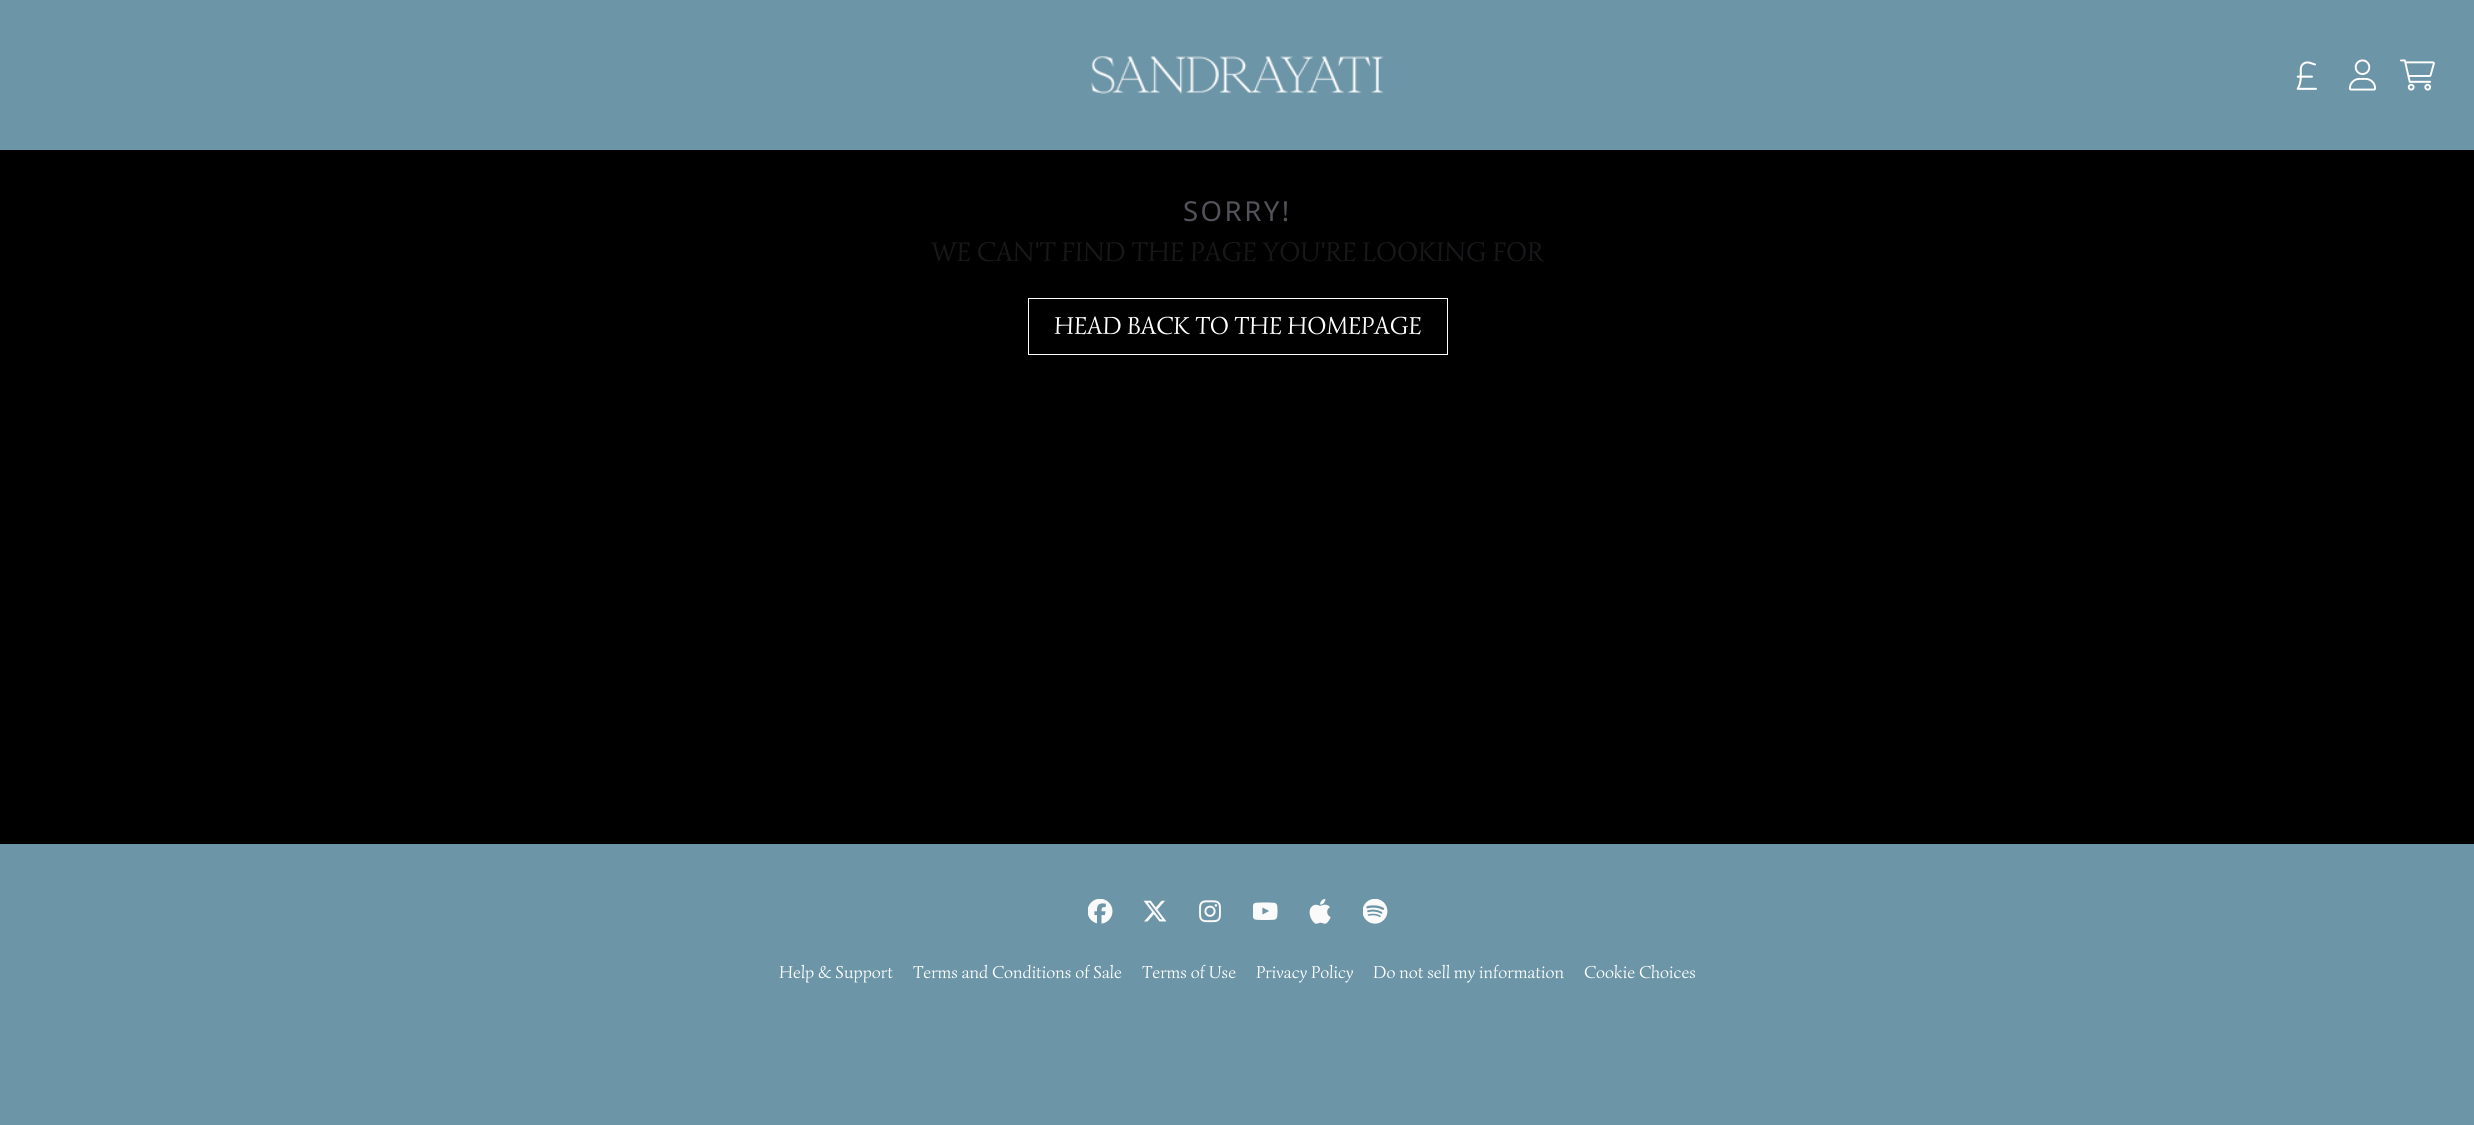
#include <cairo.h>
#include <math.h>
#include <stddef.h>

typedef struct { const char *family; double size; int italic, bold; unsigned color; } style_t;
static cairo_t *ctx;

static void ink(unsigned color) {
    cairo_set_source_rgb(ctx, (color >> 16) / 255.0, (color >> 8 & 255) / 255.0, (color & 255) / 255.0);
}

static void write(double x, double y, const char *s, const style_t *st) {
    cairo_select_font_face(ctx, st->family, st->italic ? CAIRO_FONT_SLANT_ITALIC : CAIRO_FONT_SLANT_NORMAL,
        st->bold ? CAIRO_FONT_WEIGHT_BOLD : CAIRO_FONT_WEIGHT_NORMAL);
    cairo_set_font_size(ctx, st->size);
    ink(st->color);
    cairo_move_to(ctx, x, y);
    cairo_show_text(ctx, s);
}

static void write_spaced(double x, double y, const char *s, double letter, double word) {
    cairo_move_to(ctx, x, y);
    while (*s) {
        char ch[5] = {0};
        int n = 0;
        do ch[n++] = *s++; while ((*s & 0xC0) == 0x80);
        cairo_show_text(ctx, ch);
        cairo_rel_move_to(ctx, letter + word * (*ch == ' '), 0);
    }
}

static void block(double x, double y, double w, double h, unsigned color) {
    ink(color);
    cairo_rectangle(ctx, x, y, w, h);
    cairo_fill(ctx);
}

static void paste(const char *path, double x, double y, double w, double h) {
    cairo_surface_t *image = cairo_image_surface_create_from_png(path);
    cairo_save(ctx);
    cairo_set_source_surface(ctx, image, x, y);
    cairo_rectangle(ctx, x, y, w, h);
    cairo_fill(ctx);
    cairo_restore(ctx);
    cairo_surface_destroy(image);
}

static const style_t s1 = {"Simonetta", 27.5, 0, 0, 0x18181b};
static const style_t s2 = {"Simonetta", 25, 0, 0, 0xffffff};
static const style_t s3 = {"Simonetta", 17.5, 0, 0, 0xffffff};

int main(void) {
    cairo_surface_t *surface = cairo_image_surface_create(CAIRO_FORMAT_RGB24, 2474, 1125);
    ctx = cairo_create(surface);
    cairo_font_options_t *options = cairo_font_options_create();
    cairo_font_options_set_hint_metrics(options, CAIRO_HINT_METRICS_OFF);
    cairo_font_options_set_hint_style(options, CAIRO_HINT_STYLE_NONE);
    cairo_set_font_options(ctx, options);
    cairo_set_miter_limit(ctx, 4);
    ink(0x000000);
    cairo_paint(ctx);
    block(0, 0, 2474, 150, 0x6c95a7);
    paste("pic1.png", 1091, 56, 293, 38);
    paste("pic2.png", 2296, 61, 21, 29);
    paste("pic3.png", 2348, 59, 29, 32);
    paste("pic4.png", 2400, 59, 35, 32);
    cairo_select_font_face(ctx, "Noto Sans", CAIRO_FONT_SLANT_NORMAL, CAIRO_FONT_WEIGHT_NORMAL);
    cairo_set_font_size(ctx, 27.5);
    ink(0x52525b);
    write_spaced(1183, 221, "SORRY!", 2.5, 0);
    write(931, 261, "WE CAN'T FIND THE PAGE YOU'RE LOOKING FOR", &s1);
    cairo_rectangle(ctx, 1028.5, 298.5, 419, 56);
    ink(0xffffff);
    cairo_set_line_width(ctx, 1);
    cairo_stroke(ctx);
    write(1054, 334, "HEAD BACK TO THE HOMEPAGE", &s2);
    block(0, 844, 2474, 281, 0x6c95a7);
    paste("pic5.png", 1088, 899, 25, 25);
    paste("pic6.png", 1143, 900, 24, 22);
    paste("pic7.png", 1199, 900, 22, 23);
    paste("pic8.png", 1253, 902, 25, 19);
    paste("pic9.png", 1309, 899, 22, 25);
    paste("pic10.png", 1363, 899, 25, 25);
    write(779, 978, "Help & Support", &s3);
    write(913, 978, "Terms and Conditions of Sale", &s3);
    write(1142, 978, "Terms of Use", &s3);
    write(1256, 978, "Privacy Policy", &s3);
    write(1373, 978, "Do not sell my information", &s3);
    write(1584, 978, "Cookie Choices", &s3);
    cairo_surface_write_to_png(surface, "screenshot.png");
    cairo_font_options_destroy(options);
    cairo_destroy(ctx);
    cairo_surface_destroy(surface);
    return 0;
}
